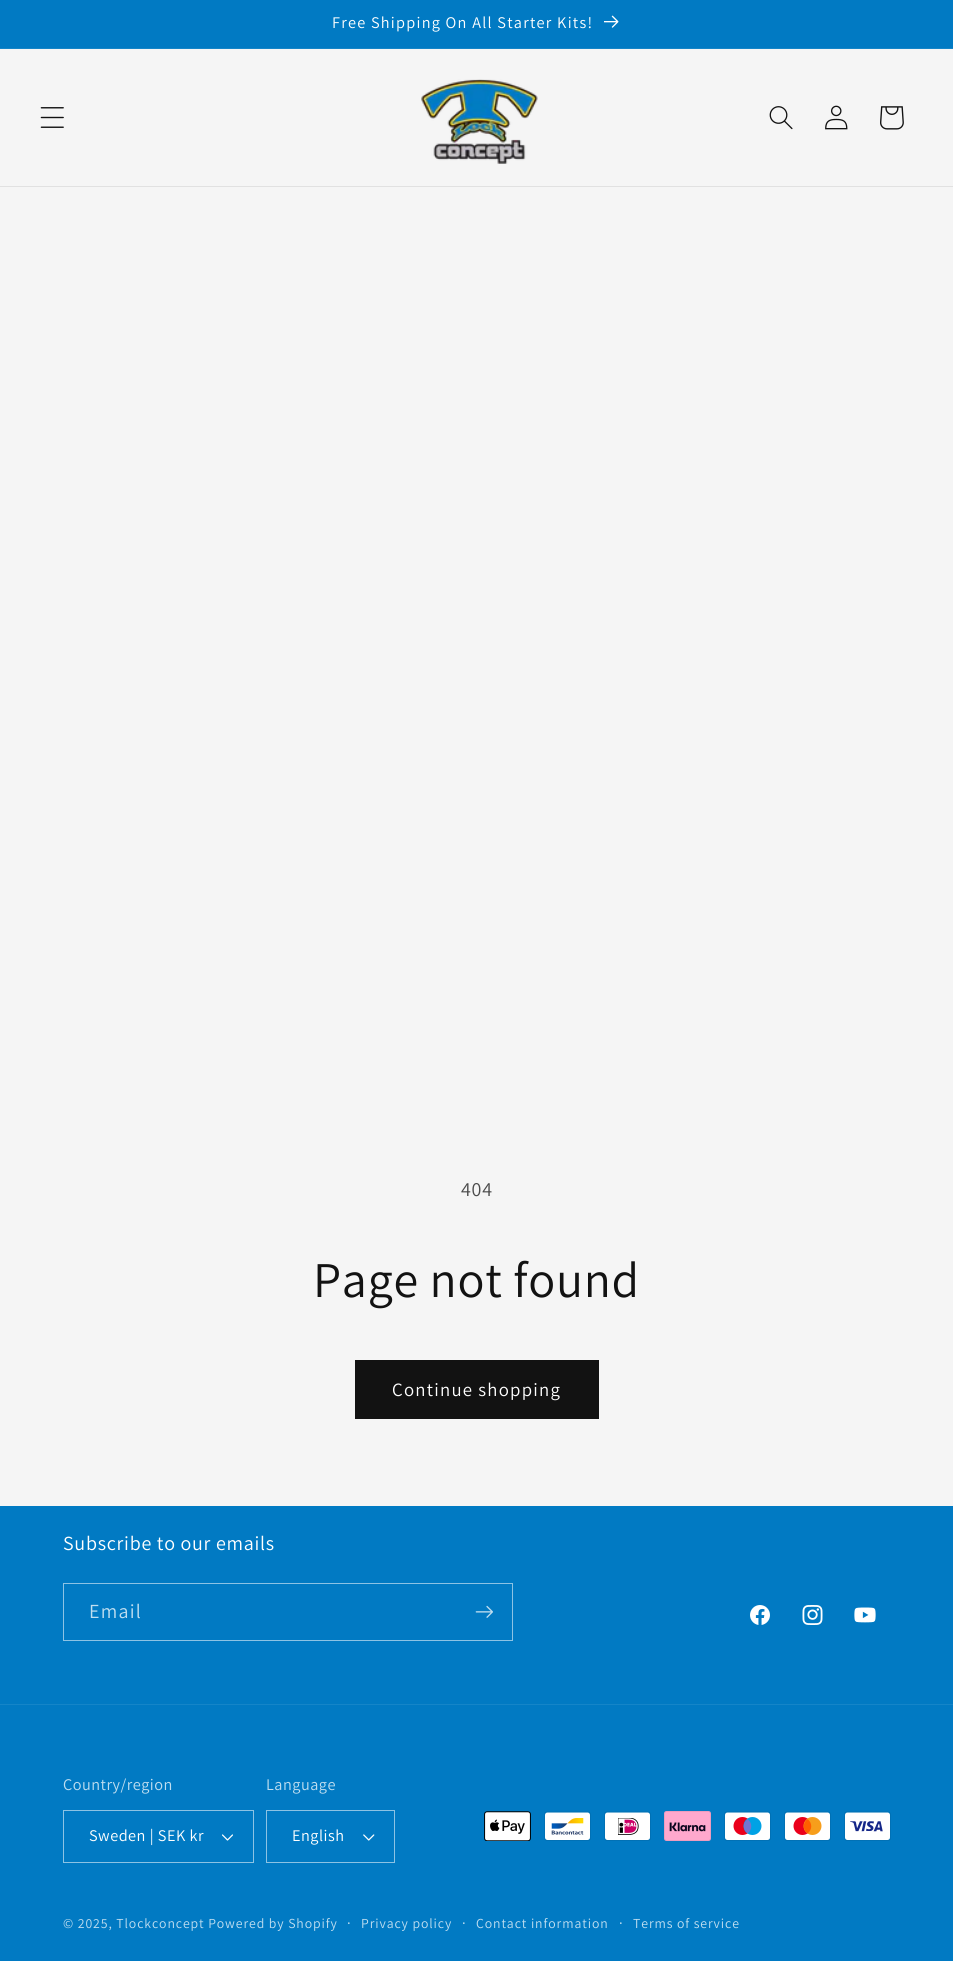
#include <cairo.h>
#include <math.h>
#include <stddef.h>

static cairo_t *ctx;

static void ink(unsigned color) {
    cairo_set_source_rgb(ctx, (color >> 16) / 255.0, (color >> 8 & 255) / 255.0, (color & 255) / 255.0);
}

static void write_spaced(double x, double y, const char *s, double letter, double word) {
    cairo_move_to(ctx, x, y);
    while (*s) {
        char ch[5] = {0};
        int n = 0;
        do ch[n++] = *s++; while ((*s & 0xC0) == 0x80);
        cairo_show_text(ctx, ch);
        cairo_rel_move_to(ctx, letter + word * (*ch == ' '), 0);
    }
}

static void block(double x, double y, double w, double h, unsigned color) {
    ink(color);
    cairo_rectangle(ctx, x, y, w, h);
    cairo_fill(ctx);
}

static void paste(const char *path, double x, double y, double w, double h) {
    cairo_surface_t *image = cairo_image_surface_create_from_png(path);
    cairo_save(ctx);
    cairo_set_source_surface(ctx, image, x, y);
    cairo_rectangle(ctx, x, y, w, h);
    cairo_fill(ctx);
    cairo_restore(ctx);
    cairo_surface_destroy(image);
}

int main(void) {
    cairo_surface_t *surface = cairo_image_surface_create(CAIRO_FORMAT_RGB24, 953, 1961);
    ctx = cairo_create(surface);
    cairo_font_options_t *options = cairo_font_options_create();
    cairo_font_options_set_hint_metrics(options, CAIRO_HINT_METRICS_OFF);
    cairo_font_options_set_hint_style(options, CAIRO_HINT_STYLE_NONE);
    cairo_set_font_options(ctx, options);
    cairo_set_miter_limit(ctx, 4);
    ink(0xf5f5f5);
    cairo_paint(ctx);
    block(0, 0, 953, 48, 0x017ac3);
    block(0, 48, 953, 1, 0x1585c8);
    cairo_select_font_face(ctx, "Assistant", CAIRO_FONT_SLANT_NORMAL, CAIRO_FONT_WEIGHT_NORMAL);
    cairo_set_font_size(ctx, 16.25);
    ink(0xffffff);
    write_spaced(332, 28, "Free Shipping On All Starter Kits!", 1.25, 0);
    paste("pic1.png", 604, 15, 15, 13);
    block(0, 186, 953, 1, 0xe1e1e1);
    paste("pic2.png", 40, 107, 24, 21);
    paste("pic3.png", 421, 79, 117, 85);
    paste("pic4.png", 769, 106, 24, 24);
    paste("pic5.png", 825, 105, 23, 25);
    paste("pic6.png", 880, 106, 24, 24);
    cairo_set_font_size(ctx, 20);
    ink(0x4b4b4b);
    write_spaced(461, 1196, "404", 0.75, 0);
    cairo_set_font_size(ctx, 50);
    ink(0x121212);
    write_spaced(313, 1297, "Page not found", 0.75, 0);
    block(355, 1360, 244, 59, 0x121212);
    cairo_set_font_size(ctx, 18.75);
    ink(0xffffff);
    write_spaced(392, 1396, "Continue shopping", 1.25, 0);
    block(0, 1506, 953, 455, 0x017ac3);
    cairo_set_font_size(ctx, 20);
    ink(0xffffff);
    write_spaced(63, 1550, "Subscribe to our emails", 0.75, 0);
    cairo_rectangle(ctx, 63.5, 1583.5, 449, 57);
    ink(0x8dc3e4);
    cairo_set_line_width(ctx, 1);
    cairo_stroke(ctx);
    ink(0xc0def0);
    write_spaced(89, 1618, "Email", 1.25, 0);
    paste("pic7.png", 475, 1605, 18, 13);
    paste("pic8.png", 750, 1605, 20, 20);
    paste("pic9.png", 802, 1605, 21, 20);
    paste("pic10.png", 854, 1607, 22, 16);
    block(0, 1704, 953, 1, 0x1585c8);
    cairo_set_font_size(ctx, 16.25);
    ink(0xc0def0);
    write_spaced(63, 1790, "Country/region", 0.5, 0);
    paste("pic11.png", 222, 1834, 11, 7);
    cairo_rectangle(ctx, 63.5, 1810.5, 190, 52);
    ink(0x8dc3e4);
    cairo_stroke(ctx);
    ink(0xffffff);
    write_spaced(89, 1841, "Sweden | SEK kr", 0.5, 0);
    ink(0xc0def0);
    write_spaced(266, 1790, "Language", 0.5, 0);
    paste("pic12.png", 363, 1834, 12, 7);
    cairo_rectangle(ctx, 266.5, 1810.5, 128, 52);
    ink(0x8dc3e4);
    cairo_stroke(ctx);
    ink(0xffffff);
    write_spaced(292, 1841, "English", 0.5, 0);
    paste("pic13.png", 484, 1811, 47, 30);
    paste("pic14.png", 544, 1811, 47, 30);
    paste("pic15.png", 604, 1811, 47, 30);
    paste("pic16.png", 664, 1811, 47, 30);
    paste("pic17.png", 724, 1811, 47, 30);
    paste("pic18.png", 784, 1811, 47, 30);
    paste("pic19.png", 844, 1811, 47, 30);
    cairo_set_font_size(ctx, 13.75);
    ink(0xc0def0);
    write_spaced(63, 1928, "© 2025, Tlockconcept Powered by Shopify", 0.9, 0);
    cairo_set_font_size(ctx, 15);
    write_spaced(347, 1928, "·", 0.9, 0);
    cairo_set_font_size(ctx, 13.75);
    write_spaced(361, 1928, "Privacy policy", 0.9, 0);
    cairo_set_font_size(ctx, 15);
    write_spaced(462, 1928, "·", 0.9, 0);
    cairo_set_font_size(ctx, 13.75);
    write_spaced(476, 1928, "Contact information", 0.9, 0);
    cairo_set_font_size(ctx, 15);
    write_spaced(619, 1928, "·", 0.9, 0);
    cairo_set_font_size(ctx, 13.75);
    write_spaced(633, 1928, "Terms of service", 0.9, 0);
    cairo_surface_write_to_png(surface, "screenshot.png");
    cairo_font_options_destroy(options);
    cairo_destroy(ctx);
    cairo_surface_destroy(surface);
    return 0;
}
